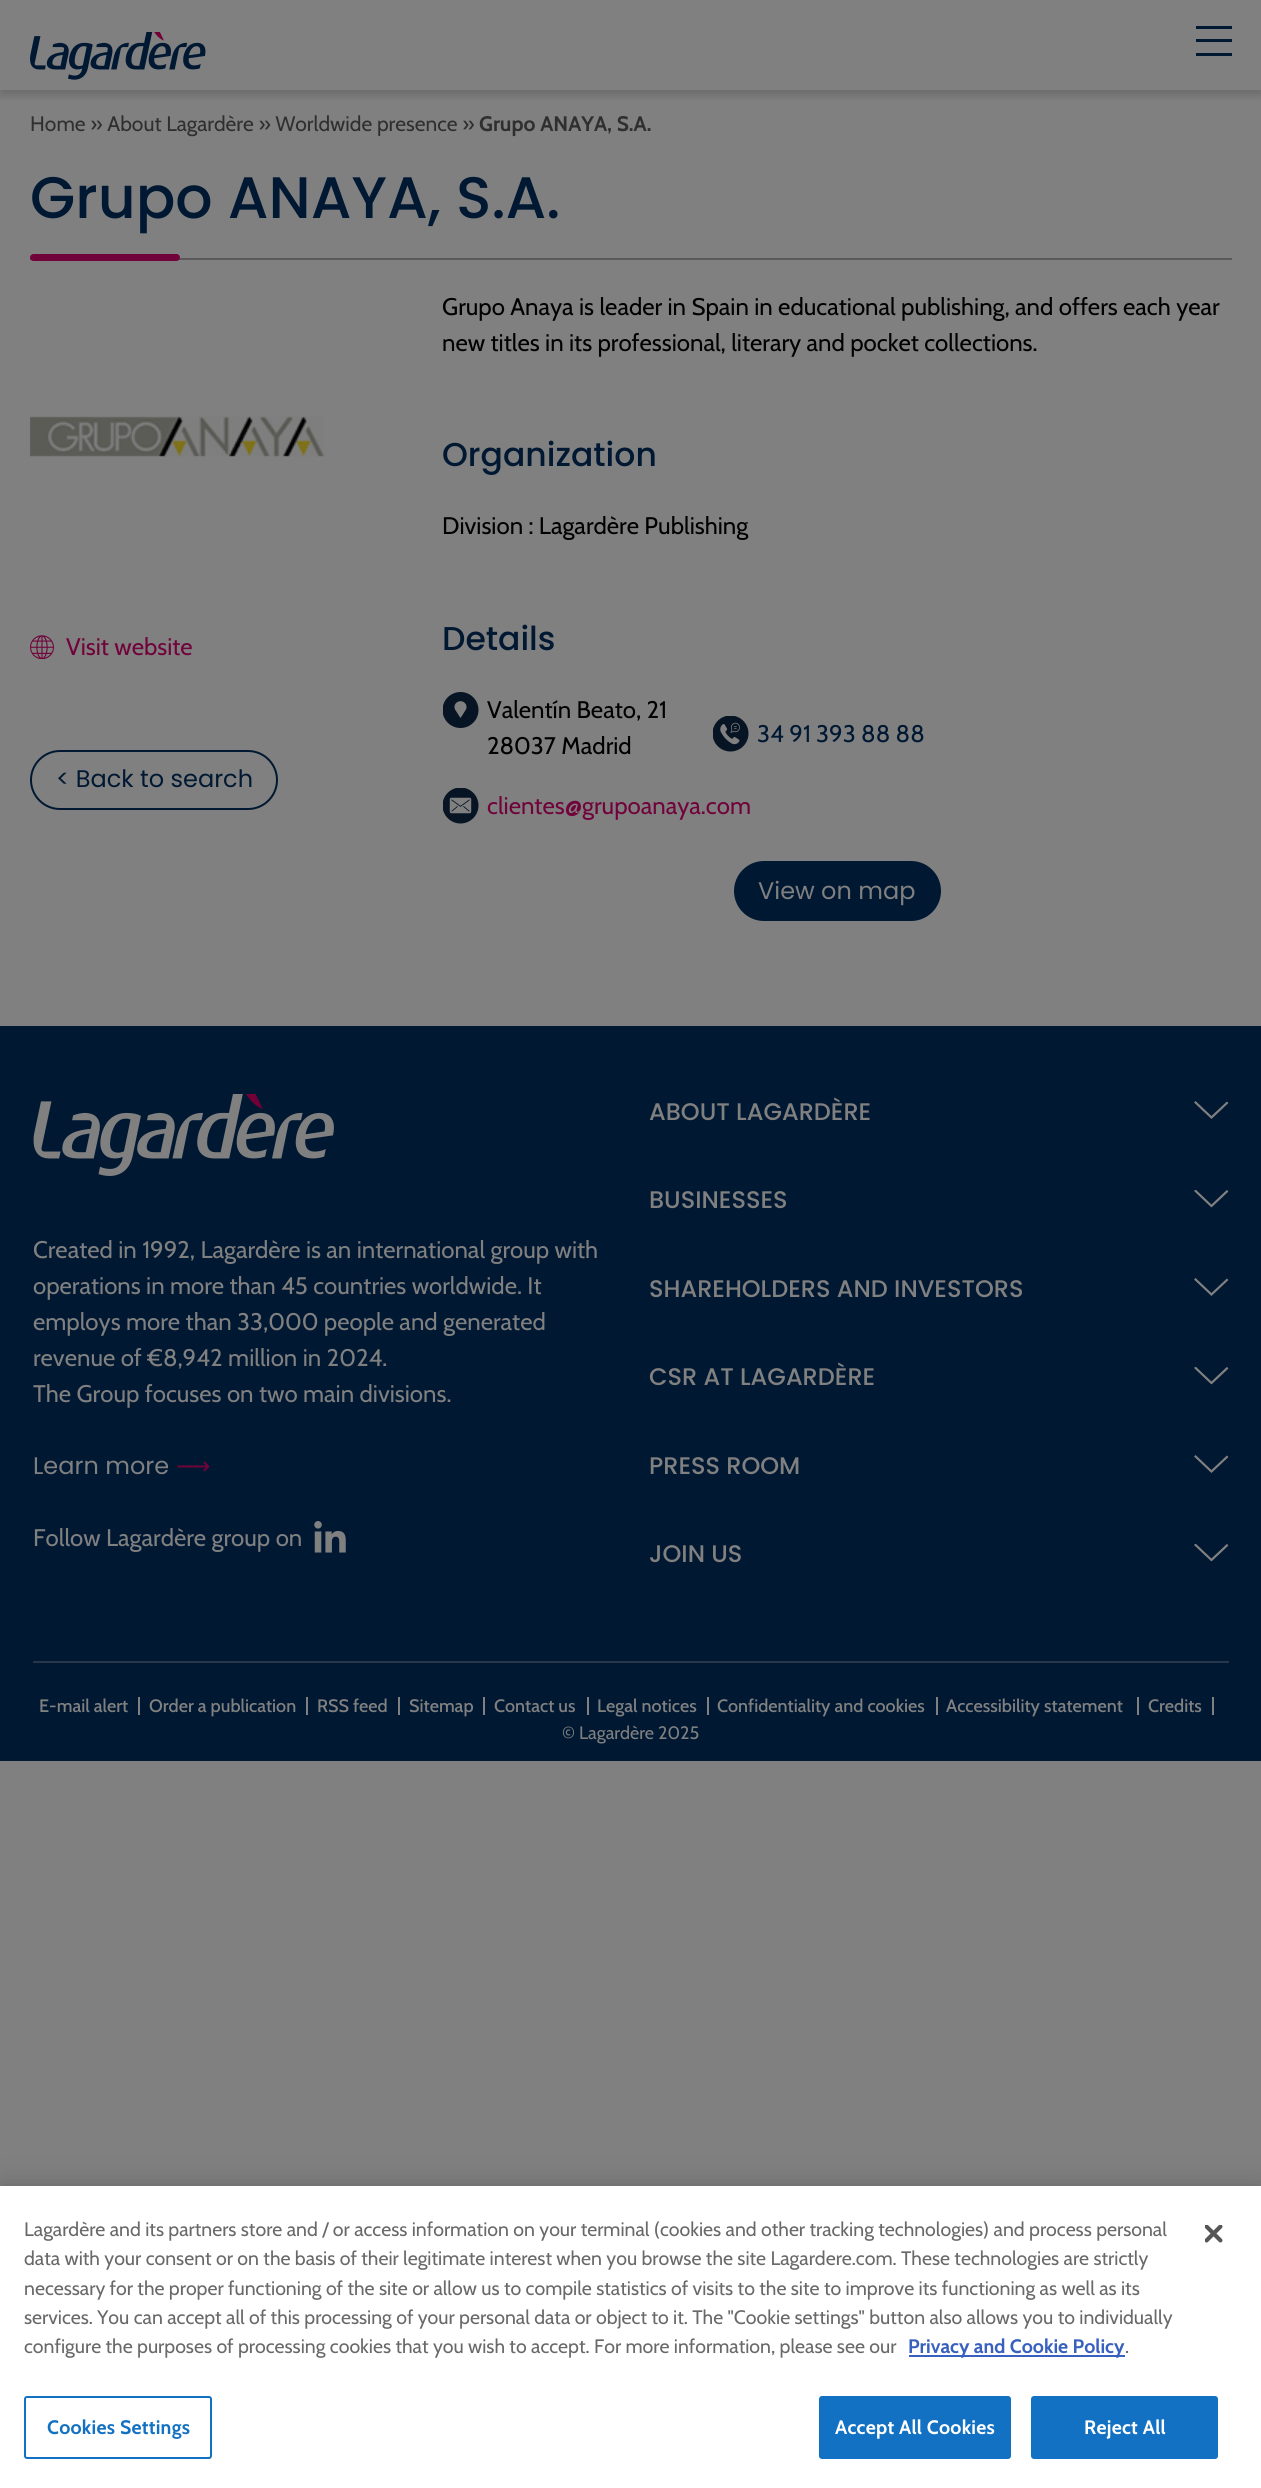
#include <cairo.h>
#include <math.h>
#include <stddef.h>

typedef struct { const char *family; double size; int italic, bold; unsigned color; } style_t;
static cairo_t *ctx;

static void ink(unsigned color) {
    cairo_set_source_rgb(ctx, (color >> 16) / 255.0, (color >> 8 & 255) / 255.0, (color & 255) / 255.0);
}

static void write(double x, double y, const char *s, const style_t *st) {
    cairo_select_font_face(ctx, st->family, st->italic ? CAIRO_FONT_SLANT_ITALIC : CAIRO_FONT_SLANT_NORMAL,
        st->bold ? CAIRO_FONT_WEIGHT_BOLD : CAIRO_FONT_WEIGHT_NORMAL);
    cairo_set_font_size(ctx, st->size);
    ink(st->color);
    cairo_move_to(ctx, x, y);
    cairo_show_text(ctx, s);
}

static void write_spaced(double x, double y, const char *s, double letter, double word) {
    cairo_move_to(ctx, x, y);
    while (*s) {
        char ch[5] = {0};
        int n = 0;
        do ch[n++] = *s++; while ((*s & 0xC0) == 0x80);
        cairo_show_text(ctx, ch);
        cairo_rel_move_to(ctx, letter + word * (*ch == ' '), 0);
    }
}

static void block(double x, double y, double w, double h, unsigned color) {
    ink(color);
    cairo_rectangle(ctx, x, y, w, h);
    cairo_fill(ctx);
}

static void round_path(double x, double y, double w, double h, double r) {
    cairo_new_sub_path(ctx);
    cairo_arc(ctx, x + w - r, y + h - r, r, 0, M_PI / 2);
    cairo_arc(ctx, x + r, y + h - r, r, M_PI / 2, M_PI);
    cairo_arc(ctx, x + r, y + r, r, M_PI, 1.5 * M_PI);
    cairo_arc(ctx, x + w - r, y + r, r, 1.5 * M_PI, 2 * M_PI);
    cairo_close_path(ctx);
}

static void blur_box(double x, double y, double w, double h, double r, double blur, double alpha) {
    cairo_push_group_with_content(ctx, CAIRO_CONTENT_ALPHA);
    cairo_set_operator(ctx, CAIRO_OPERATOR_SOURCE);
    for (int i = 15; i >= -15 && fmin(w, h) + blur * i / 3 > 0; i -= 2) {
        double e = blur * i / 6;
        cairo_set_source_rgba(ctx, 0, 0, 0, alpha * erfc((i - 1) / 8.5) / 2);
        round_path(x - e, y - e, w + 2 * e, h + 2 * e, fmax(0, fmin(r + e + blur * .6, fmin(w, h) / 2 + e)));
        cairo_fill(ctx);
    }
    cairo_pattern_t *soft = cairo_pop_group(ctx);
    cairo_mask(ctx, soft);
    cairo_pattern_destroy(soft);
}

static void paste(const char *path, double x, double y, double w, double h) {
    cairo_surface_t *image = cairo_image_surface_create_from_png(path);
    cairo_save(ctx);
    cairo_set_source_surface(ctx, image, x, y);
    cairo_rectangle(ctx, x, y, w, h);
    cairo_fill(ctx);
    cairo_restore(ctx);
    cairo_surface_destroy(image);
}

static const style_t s1 = {"Cabin", 21, 0, 0, 0x2f2f2f};
static const style_t s2 = {"Cabin", 21, 0, 1, 0x2f2f2f};
static const style_t s3 = {"Poppins Medium", 58.5, 0, 0, 0x001832};
static const style_t s4 = {"Cabin", 24, 0, 0, 0x71033b};
static const style_t s5 = {"Poppins", 24, 0, 0, 0x001832};
static const style_t s6 = {"Cabin", 24, 0, 0, 0x000000};
static const style_t s7 = {"Poppins Medium", 33, 0, 0, 0x001832};
static const style_t s8 = {"Cabin", 24, 0, 0, 0x001832};
static const style_t s9 = {"Poppins", 24, 0, 0, 0x808080};
static const style_t s10 = {"Cabin", 24, 0, 0, 0x808080};
static const style_t s11 = {"DejaVu Sans", 24, 0, 0, 0x71033b};
static const style_t s12 = {"Poppins Medium", 24, 0, 0, 0x808080};
static const style_t s13 = {"Cabin Medium", 18, 0, 0, 0x808080};
static const style_t s14 = {"Cabin", 18, 0, 0, 0x808080};
static const style_t s15 = {"Cabin", 19.5, 0, 0, 0x696969};
static const style_t s16 = {"Cabin", 19.5, 0, 1, 0x3860be};

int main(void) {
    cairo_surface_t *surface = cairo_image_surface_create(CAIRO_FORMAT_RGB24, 1261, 2488);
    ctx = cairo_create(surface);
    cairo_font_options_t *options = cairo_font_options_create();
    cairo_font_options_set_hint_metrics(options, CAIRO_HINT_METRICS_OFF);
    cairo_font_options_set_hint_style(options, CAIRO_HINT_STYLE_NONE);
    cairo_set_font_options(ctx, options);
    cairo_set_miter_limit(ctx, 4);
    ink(0x808080);
    cairo_paint(ctx);
    cairo_save(ctx);
    cairo_rectangle(ctx, 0, 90, 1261, 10);
    cairo_clip(ctx);
    ink(0x000000);
    blur_box(0, 5, 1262, 90, 0, 4.5, 0.16);
    cairo_restore(ctx);
    paste("pic1.png", 30, 32, 176, 48);
    block(1196, 39, 36, 3, 0x001832);
    block(1196, 26, 36, 3, 0x001832);
    block(1196, 53, 36, 3, 0x001832);
    write(30, 131, "Home » About Lagardère » Worldwide presence »", &s1);
    write(479, 131, "Grupo ANAYA, S.A.", &s2);
    block(30, 258, 1202, 2, 0x595959);
    write(30, 218, "Grupo ANAYA, S.A.", &s3);
    ink(0x71033b);
    round_path(30, 254, 150, 7, 3.5);
    cairo_fill(ctx);
    paste("pic2.png", 30, 416, 294, 41);
    paste("pic3.png", 30, 635, 24, 24);
    write(66, 655, "Visit website", &s4);
    round_path(31, 751, 246, 58, 29);
    ink(0x001832);
    cairo_stroke(ctx);
    write(56, 787, "< Back to search", &s5);
    write(442, 315, "Grupo Anaya is leader in Spain in educational publishing, and offers each year", &s6);
    write(442, 351, "new titles in its professional, literary and pocket collections.", &s6);
    write(442, 466, "Organization", &s7);
    write(442, 534, "Division : Lagardère Publishing", &s6);
    write(442, 650, "Details", &s7);
    paste("pic4.png", 443, 692, 36, 36);
    write(487, 718, "Valentín Beato, 21", &s6);
    write(487, 754, "28037 Madrid", &s6);
    paste("pic5.png", 713, 716, 36, 36);
    write(757, 742, "34 91 393 88 88", &s8);
    paste("pic6.png", 443, 788, 36, 36);
    write(487, 814, "clientes@grupoanaya.com", &s4);
    ink(0x001832);
    round_path(734, 861, 207, 60, 30);
    cairo_fill(ctx);
    write(758, 899, "View on map", &s9);
    block(0, 1026, 1261, 735, 0x001832);
    paste("pic7.png", 33, 1094, 301, 82);
    write(33, 1258, "Created in 1992, Lagardère is an international group with", &s10);
    write(33, 1294, "operations in more than 45 countries worldwide. It", &s10);
    write(33, 1330, "employs more than 33,000 people and generated", &s10);
    write(33, 1366, "revenue of €8,942 million in 2024.", &s10);
    write(33, 1402, "The Group focuses on two main divisions.", &s10);
    write(33, 1474, "Learn more", &s9);
    write(176, 1474, "⟶", &s11);
    write(33, 1546, "Follow Lagardère group on", &s10);
    paste("pic8.png", 314, 1521, 32, 32);
    write(649, 1120, "ABOUT LAGARDÈRE", &s12);
    paste("pic9.png", 1194, 1101, 35, 18);
    write(649, 1208, "BUSINESSES", &s12);
    paste("pic10.png", 1194, 1190, 35, 18);
    write(649, 1297, "SHAREHOLDERS AND INVESTORS", &s12);
    paste("pic9.png", 1194, 1278, 35, 18);
    write(649, 1385, "CSR AT LAGARDÈRE", &s12);
    paste("pic10.png", 1194, 1367, 35, 18);
    write(649, 1474, "PRESS ROOM", &s12);
    paste("pic9.png", 1194, 1455, 35, 18);
    write(649, 1562, "JOIN US", &s12);
    paste("pic10.png", 1194, 1544, 35, 18);
    block(33, 1661, 1196, 2, 0x273749);
    write(39, 1712, "E-mail alert", &s13);
    block(138, 1697, 2, 18, 0x808080);
    write(149, 1712, "Order a publication", &s13);
    block(306, 1697, 2, 18, 0x808080);
    write(317, 1712, "RSS feed", &s13);
    block(398, 1697, 2, 18, 0x808080);
    write(409, 1712, "Sitemap", &s13);
    block(483, 1697, 2, 18, 0x808080);
    write(494, 1712, "Contact us", &s13);
    block(587, 1697, 2, 18, 0x808080);
    write(597, 1712, "Legal notices", &s13);
    block(707, 1697, 2, 18, 0x808080);
    write(717, 1712, "Confidentiality and cookies", &s13);
    block(936, 1697, 2, 18, 0x808080);
    write(946, 1712, "Accessibility statement", &s13);
    block(1137, 1697, 2, 18, 0x808080);
    write(1148, 1712, "Credits", &s13);
    block(1212, 1697, 2, 18, 0x808080);
    write(562, 1739, "© Lagardère 2025", &s14);
    ink(0x000000);
    blur_box(0, 2186, 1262, 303, 0, 13.5, 0.2);
    block(0, 2186, 1261, 302, 0xffffff);
    write(24, 2236, "Lagardère and its partners store and / or access information on your terminal (cookies and other tracking technologies) and process personal", &s15);
    write(24, 2265, "data with your consent or on the basis of their legitimate interest when you browse the site Lagardere.com. These technologies are strictly", &s15);
    write(24, 2295, "necessary for the proper functioning of the site or allow us to compile statistics of visits to the site to improve its functioning as well as its", &s15);
    write(24, 2324, "services. You can accept all of this processing of your personal data or object to it. The \"Cookie settings\" button also allows you to individually", &s15);
    write(24, 2353, "configure the purposes of processing cookies that you wish to accept. For more information, please see our", &s15);
    block(909, 2355, 216, 2, 0x3860be);
    write(908, 2353, "Privacy and Cookie Policy", &s16);
    write(1125, 2353, ".", &s15);
    round_path(25, 2397, 186, 61, 2);
    ink(0x1371c3);
    cairo_stroke(ctx);
    cairo_select_font_face(ctx, "Cabin", CAIRO_FONT_SLANT_NORMAL, CAIRO_FONT_WEIGHT_BOLD);
    write_spaced(47, 2434, "Cookies Settings", 0.25, 0);
    round_path(820, 2397, 190, 61, 2);
    cairo_fill_preserve(ctx);
    cairo_stroke(ctx);
    ink(0xffffff);
    write_spaced(835, 2434, "Accept All Cookies", 0.25, 0);
    ink(0x1371c3);
    round_path(1032, 2397, 185, 61, 2);
    cairo_fill_preserve(ctx);
    cairo_stroke(ctx);
    ink(0xffffff);
    write_spaced(1084, 2434, "Reject All", 0.25, 0);
    paste("pic11.png", 1205, 2225, 18, 18);
    cairo_surface_write_to_png(surface, "screenshot.png");
    cairo_font_options_destroy(options);
    cairo_destroy(ctx);
    cairo_surface_destroy(surface);
    return 0;
}
